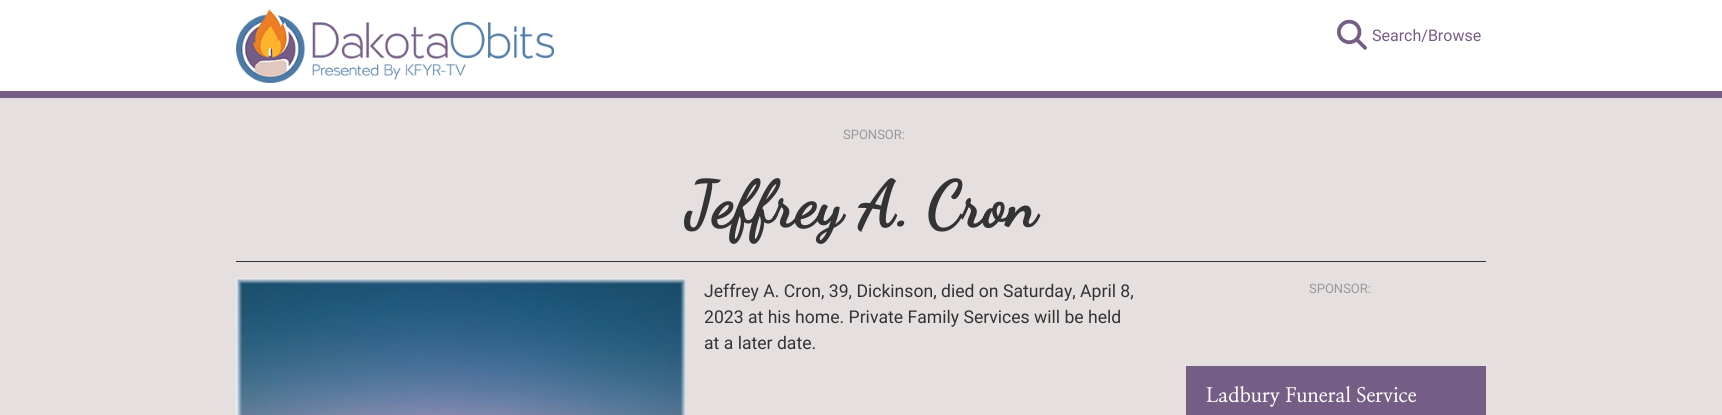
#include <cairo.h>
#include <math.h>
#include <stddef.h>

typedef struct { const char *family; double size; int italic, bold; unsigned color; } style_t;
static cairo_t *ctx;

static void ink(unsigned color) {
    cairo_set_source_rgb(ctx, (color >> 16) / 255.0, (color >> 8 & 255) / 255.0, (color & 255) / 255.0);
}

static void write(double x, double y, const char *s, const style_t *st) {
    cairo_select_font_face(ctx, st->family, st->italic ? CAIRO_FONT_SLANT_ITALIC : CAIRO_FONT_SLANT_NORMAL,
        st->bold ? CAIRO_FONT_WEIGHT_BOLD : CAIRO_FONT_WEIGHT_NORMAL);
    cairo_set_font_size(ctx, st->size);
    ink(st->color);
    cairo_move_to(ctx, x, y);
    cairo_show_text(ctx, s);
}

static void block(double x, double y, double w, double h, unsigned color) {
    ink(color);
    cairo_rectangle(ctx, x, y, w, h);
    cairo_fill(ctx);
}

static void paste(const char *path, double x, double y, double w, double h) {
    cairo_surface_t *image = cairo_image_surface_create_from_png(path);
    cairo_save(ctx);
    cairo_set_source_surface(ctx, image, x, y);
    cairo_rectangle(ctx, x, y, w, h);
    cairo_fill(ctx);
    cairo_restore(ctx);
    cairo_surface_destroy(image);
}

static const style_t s1 = {"Roboto", 16, 0, 0, 0x755e85};
static const style_t s2 = {"Roboto", 13, 0, 0, 0x999999};
static const style_t s3 = {"Dancing Script", 64, 0, 1, 0x333333};
static const style_t s4 = {"Roboto", 17.6, 0, 0, 0x333333};
static const style_t s5 = {"NanumMyeongjo", 20, 0, 1, 0xffffff};

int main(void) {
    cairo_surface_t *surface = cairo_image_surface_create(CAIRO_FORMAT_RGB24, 1722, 415);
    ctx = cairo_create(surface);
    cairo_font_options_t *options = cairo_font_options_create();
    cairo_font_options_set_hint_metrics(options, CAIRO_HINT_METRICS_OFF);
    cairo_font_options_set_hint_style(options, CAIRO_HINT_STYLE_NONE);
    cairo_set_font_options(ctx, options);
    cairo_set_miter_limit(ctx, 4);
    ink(0xe5e0df);
    cairo_paint(ctx);
    block(0, 0, 1722, 91, 0xffffff);
    block(0, 91, 1722, 7, 0x755e85);
    paste("pic1.png", 236, 9, 318, 74);
    paste("pic2.png", 1337, 19, 30, 31);
    write(1372, 41, "Search/Browse", &s1);
    write(843, 139, "SPONSOR:", &s2);
    block(236, 261, 1250, 1, 0x333333);
    write(686, 226, "Jeffrey A. Cron", &s3);
    paste("pic3.png", 236, 278, 450, 137);
    write(704, 297, "Jeffrey A. Cron, 39, Dickinson, died on Saturday, April 8,", &s4);
    write(704, 323, "2023 at his home. Private Family Services will be held", &s4);
    write(704, 349, "at a later date.", &s4);
    write(1309, 293, "SPONSOR:", &s2);
    block(1186, 366, 300, 49, 0x755e85);
    write(1206, 402, "Ladbury Funeral Service", &s5);
    cairo_surface_write_to_png(surface, "screenshot.png");
    cairo_font_options_destroy(options);
    cairo_destroy(ctx);
    cairo_surface_destroy(surface);
    return 0;
}
